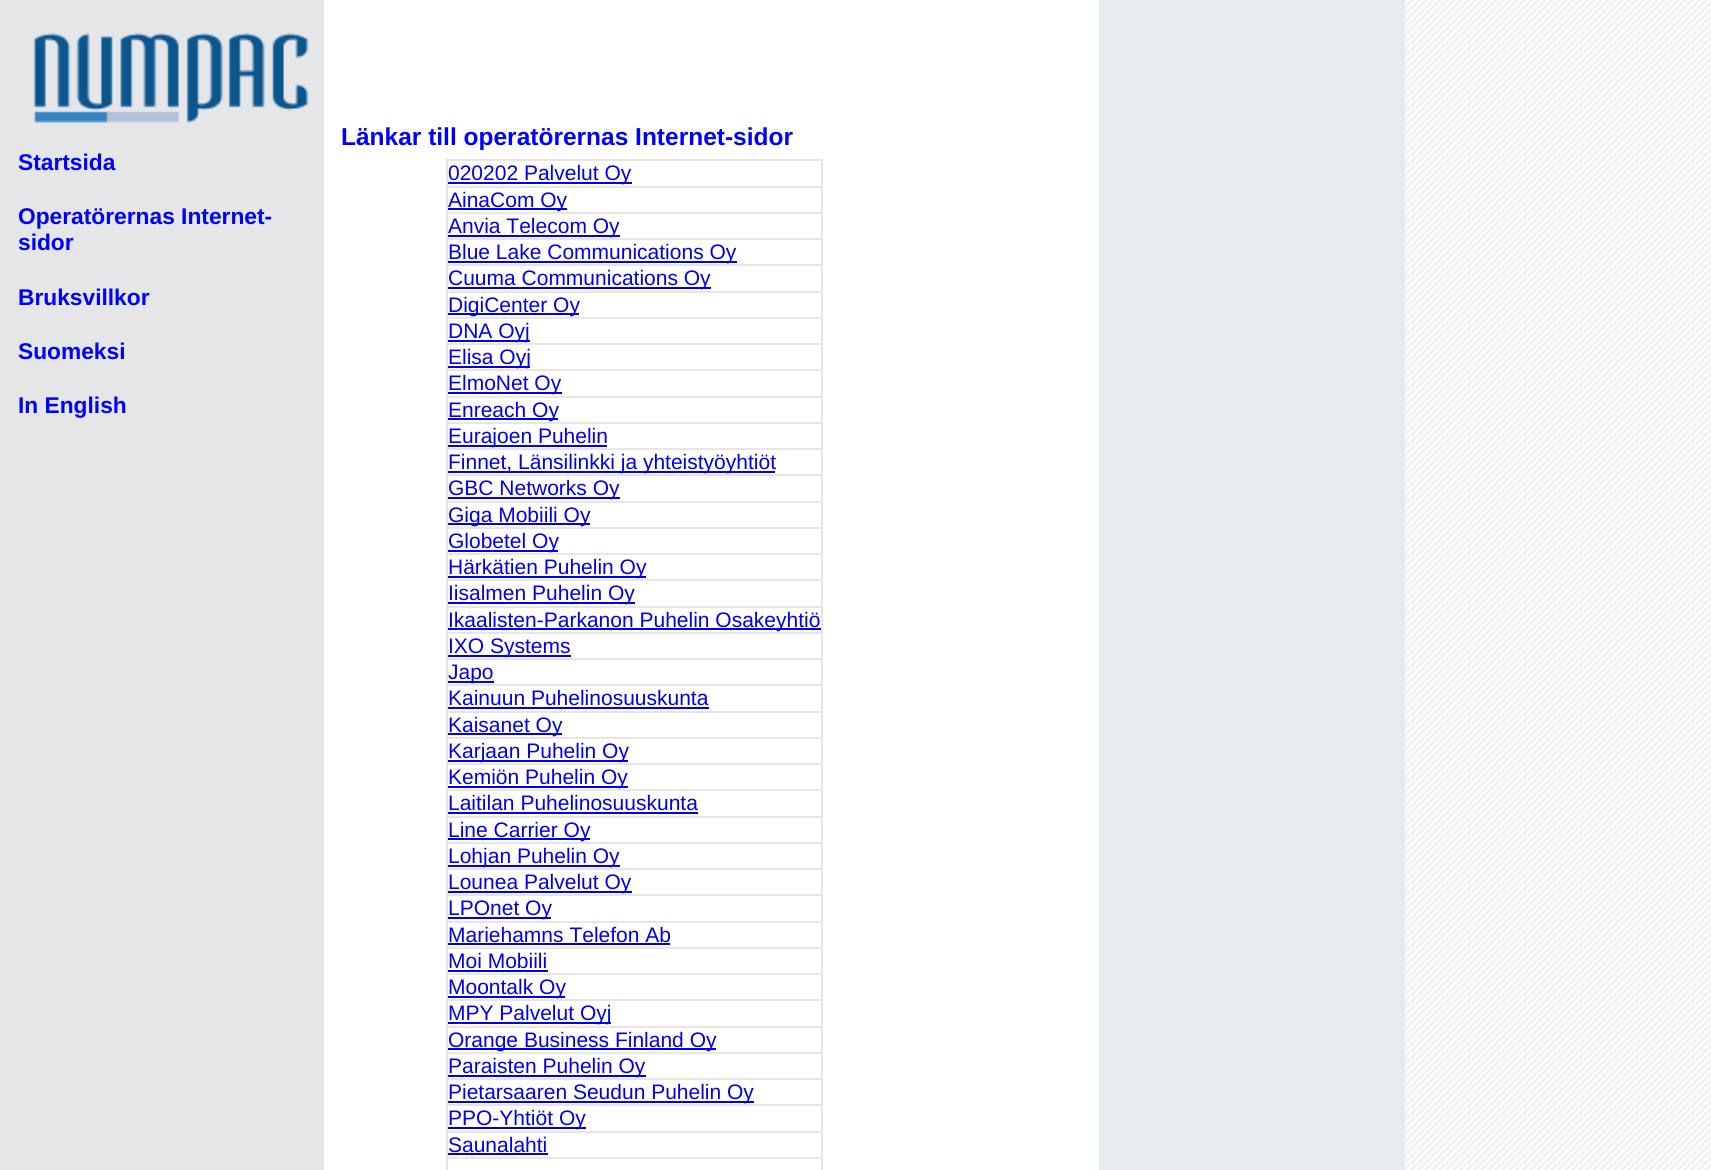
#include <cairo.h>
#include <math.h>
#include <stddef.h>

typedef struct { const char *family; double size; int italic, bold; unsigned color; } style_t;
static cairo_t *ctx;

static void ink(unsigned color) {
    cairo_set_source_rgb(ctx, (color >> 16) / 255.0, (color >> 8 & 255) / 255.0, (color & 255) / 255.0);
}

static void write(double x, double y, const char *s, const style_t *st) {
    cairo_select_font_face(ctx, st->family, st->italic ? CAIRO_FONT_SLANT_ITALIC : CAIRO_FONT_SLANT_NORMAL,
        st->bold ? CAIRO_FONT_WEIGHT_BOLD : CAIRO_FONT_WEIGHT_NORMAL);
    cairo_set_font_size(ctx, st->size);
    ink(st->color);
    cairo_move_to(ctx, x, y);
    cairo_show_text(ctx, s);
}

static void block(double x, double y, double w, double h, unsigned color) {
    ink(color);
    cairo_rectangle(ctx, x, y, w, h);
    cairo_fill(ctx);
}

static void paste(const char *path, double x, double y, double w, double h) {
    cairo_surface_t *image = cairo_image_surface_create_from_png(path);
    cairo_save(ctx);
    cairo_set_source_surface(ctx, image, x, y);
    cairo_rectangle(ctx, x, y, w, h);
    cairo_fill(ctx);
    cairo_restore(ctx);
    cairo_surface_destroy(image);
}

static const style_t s1 = {"Liberation Sans", 22.75, 0, 1, 0x0000ff};
static const style_t s2 = {"Liberation Sans", 24.5, 0, 1, 0x0000ff};
static const style_t s3 = {"Liberation Sans", 21, 0, 0, 0x0000ee};

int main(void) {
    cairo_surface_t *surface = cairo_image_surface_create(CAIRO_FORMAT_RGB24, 1711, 1170);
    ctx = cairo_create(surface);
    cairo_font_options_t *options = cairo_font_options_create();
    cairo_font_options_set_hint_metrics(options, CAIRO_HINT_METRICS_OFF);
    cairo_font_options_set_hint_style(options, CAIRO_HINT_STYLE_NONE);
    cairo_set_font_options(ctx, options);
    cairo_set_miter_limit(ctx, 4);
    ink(0xffffff);
    cairo_paint(ctx);
    block(0, 0, 324, 1170, 0xe4e6e8);
    paste("pic1.png", 33, 32, 276, 91);
    block(1099, 0, 306, 1170, 0xe6ebf0);
    paste("pic2.png", 1405, 0, 306, 1170);
    write(18, 170, "Startsida", &s1);
    write(18, 224, "Operatörernas Internet-", &s1);
    write(18, 250, "sidor", &s1);
    write(18, 305, "Bruksvillkor", &s1);
    write(18, 359, "Suomeksi", &s1);
    write(18, 413, "In English", &s1);
    write(341, 145, "Länkar till operatörernas Internet-sidor", &s2);
    block(446, 159, 377, 2, 0xe4e6e8);
    block(446, 186, 377, 2, 0xe4e6e8);
    block(446, 212, 377, 2, 0xe4e6e8);
    block(446, 238, 377, 2, 0xe4e6e8);
    block(446, 264, 377, 2, 0xe4e6e8);
    block(446, 291, 377, 2, 0xe4e6e8);
    block(446, 317, 377, 2, 0xe4e6e8);
    block(446, 343, 377, 2, 0xe4e6e8);
    block(446, 369, 377, 2, 0xe4e6e8);
    block(446, 396, 377, 2, 0xe4e6e8);
    block(446, 422, 377, 2, 0xe4e6e8);
    block(446, 448, 377, 2, 0xe4e6e8);
    block(446, 474, 377, 2, 0xe4e6e8);
    block(446, 501, 377, 2, 0xe4e6e8);
    block(446, 527, 377, 2, 0xe4e6e8);
    block(446, 553, 377, 2, 0xe4e6e8);
    block(446, 579, 377, 2, 0xe4e6e8);
    block(446, 606, 377, 2, 0xe4e6e8);
    block(446, 632, 377, 2, 0xe4e6e8);
    block(446, 658, 377, 2, 0xe4e6e8);
    block(446, 684, 377, 2, 0xe4e6e8);
    block(446, 711, 377, 2, 0xe4e6e8);
    block(446, 737, 377, 2, 0xe4e6e8);
    block(446, 763, 377, 2, 0xe4e6e8);
    block(446, 789, 377, 2, 0xe4e6e8);
    block(446, 816, 377, 2, 0xe4e6e8);
    block(446, 842, 377, 2, 0xe4e6e8);
    block(446, 868, 377, 2, 0xe4e6e8);
    block(446, 894, 377, 2, 0xe4e6e8);
    block(446, 921, 377, 2, 0xe4e6e8);
    block(446, 947, 377, 2, 0xe4e6e8);
    block(446, 973, 377, 2, 0xe4e6e8);
    block(446, 999, 377, 2, 0xe4e6e8);
    block(446, 1026, 377, 2, 0xe4e6e8);
    block(446, 1052, 377, 2, 0xe4e6e8);
    block(446, 1078, 377, 2, 0xe4e6e8);
    block(446, 1104, 377, 2, 0xe4e6e8);
    block(446, 1131, 377, 2, 0xe4e6e8);
    block(446, 1157, 377, 2, 0xe4e6e8);
    block(821, 1157, 2, 13, 0xe4e6e8);
    block(821, 1131, 2, 28, 0xe4e6e8);
    block(821, 1104, 2, 28, 0xe4e6e8);
    block(821, 1078, 2, 28, 0xe4e6e8);
    block(821, 1052, 2, 28, 0xe4e6e8);
    block(821, 1026, 2, 28, 0xe4e6e8);
    block(821, 999, 2, 28, 0xe4e6e8);
    block(821, 973, 2, 28, 0xe4e6e8);
    block(821, 947, 2, 28, 0xe4e6e8);
    block(821, 921, 2, 28, 0xe4e6e8);
    block(821, 894, 2, 28, 0xe4e6e8);
    block(821, 868, 2, 28, 0xe4e6e8);
    block(821, 842, 2, 28, 0xe4e6e8);
    block(821, 816, 2, 28, 0xe4e6e8);
    block(821, 789, 2, 28, 0xe4e6e8);
    block(821, 763, 2, 28, 0xe4e6e8);
    block(821, 737, 2, 28, 0xe4e6e8);
    block(821, 711, 2, 28, 0xe4e6e8);
    block(821, 684, 2, 28, 0xe4e6e8);
    block(821, 658, 2, 28, 0xe4e6e8);
    block(821, 632, 2, 28, 0xe4e6e8);
    block(821, 606, 2, 28, 0xe4e6e8);
    block(821, 579, 2, 28, 0xe4e6e8);
    block(821, 553, 2, 28, 0xe4e6e8);
    block(821, 527, 2, 28, 0xe4e6e8);
    block(821, 501, 2, 28, 0xe4e6e8);
    block(821, 474, 2, 28, 0xe4e6e8);
    block(821, 448, 2, 28, 0xe4e6e8);
    block(821, 422, 2, 28, 0xe4e6e8);
    block(821, 396, 2, 28, 0xe4e6e8);
    block(821, 369, 2, 28, 0xe4e6e8);
    block(821, 343, 2, 28, 0xe4e6e8);
    block(821, 317, 2, 28, 0xe4e6e8);
    block(821, 291, 2, 28, 0xe4e6e8);
    block(821, 264, 2, 28, 0xe4e6e8);
    block(821, 238, 2, 28, 0xe4e6e8);
    block(821, 212, 2, 28, 0xe4e6e8);
    block(821, 186, 2, 28, 0xe4e6e8);
    block(821, 159, 2, 28, 0xe4e6e8);
    block(446, 1157, 2, 13, 0xe4e6e8);
    block(446, 1131, 2, 28, 0xe4e6e8);
    block(446, 1104, 2, 28, 0xe4e6e8);
    block(446, 1078, 2, 28, 0xe4e6e8);
    block(446, 1052, 2, 28, 0xe4e6e8);
    block(446, 1026, 2, 28, 0xe4e6e8);
    block(446, 999, 2, 28, 0xe4e6e8);
    block(446, 973, 2, 28, 0xe4e6e8);
    block(446, 947, 2, 28, 0xe4e6e8);
    block(446, 921, 2, 28, 0xe4e6e8);
    block(446, 894, 2, 28, 0xe4e6e8);
    block(446, 868, 2, 28, 0xe4e6e8);
    block(446, 842, 2, 28, 0xe4e6e8);
    block(446, 816, 2, 28, 0xe4e6e8);
    block(446, 789, 2, 28, 0xe4e6e8);
    block(446, 763, 2, 28, 0xe4e6e8);
    block(446, 737, 2, 28, 0xe4e6e8);
    block(446, 711, 2, 28, 0xe4e6e8);
    block(446, 684, 2, 28, 0xe4e6e8);
    block(446, 658, 2, 28, 0xe4e6e8);
    block(446, 632, 2, 28, 0xe4e6e8);
    block(446, 606, 2, 28, 0xe4e6e8);
    block(446, 579, 2, 28, 0xe4e6e8);
    block(446, 553, 2, 28, 0xe4e6e8);
    block(446, 527, 2, 28, 0xe4e6e8);
    block(446, 501, 2, 28, 0xe4e6e8);
    block(446, 474, 2, 28, 0xe4e6e8);
    block(446, 448, 2, 28, 0xe4e6e8);
    block(446, 422, 2, 28, 0xe4e6e8);
    block(446, 396, 2, 28, 0xe4e6e8);
    block(446, 369, 2, 28, 0xe4e6e8);
    block(446, 343, 2, 28, 0xe4e6e8);
    block(446, 317, 2, 28, 0xe4e6e8);
    block(446, 291, 2, 28, 0xe4e6e8);
    block(446, 264, 2, 28, 0xe4e6e8);
    block(446, 238, 2, 28, 0xe4e6e8);
    block(446, 212, 2, 28, 0xe4e6e8);
    block(446, 186, 2, 28, 0xe4e6e8);
    block(446, 159, 2, 28, 0xe4e6e8);
    block(448, 182, 184, 2, 0x0000ee);
    write(448, 180, "020202 Palvelut Oy", &s3);
    block(448, 208, 119, 2, 0x0000ee);
    write(448, 207, "AinaCom Oy", &s3);
    block(448, 235, 172, 2, 0x0000ee);
    write(448, 233, "Anvia Telecom Oy", &s3);
    block(448, 261, 289, 2, 0x0000ee);
    write(448, 259, "Blue Lake Communications Oy", &s3);
    block(448, 287, 263, 2, 0x0000ee);
    write(448, 285, "Cuuma Communications Oy", &s3);
    block(448, 313, 131, 2, 0x0000ee);
    write(448, 312, "DigiCenter Oy", &s3);
    block(448, 340, 82, 2, 0x0000ee);
    write(448, 338, "DNA Oyj", &s3);
    block(448, 366, 82, 2, 0x0000ee);
    write(448, 364, "Elisa Oyj", &s3);
    block(448, 392, 114, 2, 0x0000ee);
    write(448, 390, "ElmoNet Oy", &s3);
    block(448, 418, 110, 2, 0x0000ee);
    write(448, 417, "Enreach Oy", &s3);
    block(448, 445, 159, 2, 0x0000ee);
    write(448, 443, "Eurajoen Puhelin", &s3);
    block(448, 471, 327, 2, 0x0000ee);
    write(448, 469, "Finnet, Länsilinkki ja yhteistyöyhtiöt", &s3);
    block(448, 497, 172, 2, 0x0000ee);
    write(448, 495, "GBC Networks Oy", &s3);
    block(448, 523, 142, 2, 0x0000ee);
    write(448, 522, "Giga Mobiili Oy", &s3);
    block(448, 550, 110, 2, 0x0000ee);
    write(448, 548, "Globetel Oy", &s3);
    block(448, 576, 198, 2, 0x0000ee);
    write(448, 574, "Härkätien Puhelin Oy", &s3);
    block(448, 602, 187, 2, 0x0000ee);
    write(448, 600, "Iisalmen Puhelin Oy", &s3);
    block(448, 628, 373, 2, 0x0000ee);
    write(448, 627, "Ikaalisten-Parkanon Puhelin Osakeyhtiö", &s3);
    block(448, 655, 123, 2, 0x0000ee);
    write(448, 653, "IXO Systems", &s3);
    block(448, 681, 46, 2, 0x0000ee);
    write(448, 679, "Japo", &s3);
    write(448, 705, "Kainuun Puhelinosuuskunta", &s3);
    block(448, 707, 261, 2, 0x0000ee);
    block(448, 733, 114, 2, 0x0000ee);
    write(448, 732, "Kaisanet Oy", &s3);
    block(448, 760, 180, 2, 0x0000ee);
    write(448, 758, "Karjaan Puhelin Oy", &s3);
    block(448, 786, 180, 2, 0x0000ee);
    write(448, 784, "Kemiön Puhelin Oy", &s3);
    write(448, 810, "Laitilan Puhelinosuuskunta", &s3);
    block(448, 812, 250, 2, 0x0000ee);
    block(448, 838, 142, 2, 0x0000ee);
    write(448, 837, "Line Carrier Oy", &s3);
    block(448, 865, 172, 2, 0x0000ee);
    write(448, 863, "Lohjan Puhelin Oy", &s3);
    block(448, 891, 184, 2, 0x0000ee);
    write(448, 889, "Lounea Palvelut Oy", &s3);
    block(448, 917, 103, 2, 0x0000ee);
    write(448, 915, "LPOnet Oy", &s3);
    write(448, 942, "Mariehamns Telefon Ab", &s3);
    block(448, 943, 222, 2, 0x0000ee);
    write(448, 968, "Moi Mobiili", &s3);
    block(448, 970, 100, 2, 0x0000ee);
    block(448, 996, 117, 2, 0x0000ee);
    write(448, 994, "Moontalk Oy", &s3);
    block(448, 1022, 163, 2, 0x0000ee);
    write(448, 1020, "MPY Palvelut Oyj", &s3);
    block(448, 1048, 268, 2, 0x0000ee);
    write(448, 1047, "Orange Business Finland Oy", &s3);
    block(448, 1075, 198, 2, 0x0000ee);
    write(448, 1073, "Paraisten Puhelin Oy", &s3);
    block(448, 1101, 306, 2, 0x0000ee);
    write(448, 1099, "Pietarsaaren Seudun Puhelin Oy", &s3);
    block(448, 1127, 138, 2, 0x0000ee);
    write(448, 1125, "PPO-Yhtiöt Oy", &s3);
    write(448, 1152, "Saunalahti", &s3);
    block(448, 1153, 100, 2, 0x0000ee);
    cairo_surface_write_to_png(surface, "screenshot.png");
    cairo_font_options_destroy(options);
    cairo_destroy(ctx);
    cairo_surface_destroy(surface);
    return 0;
}
